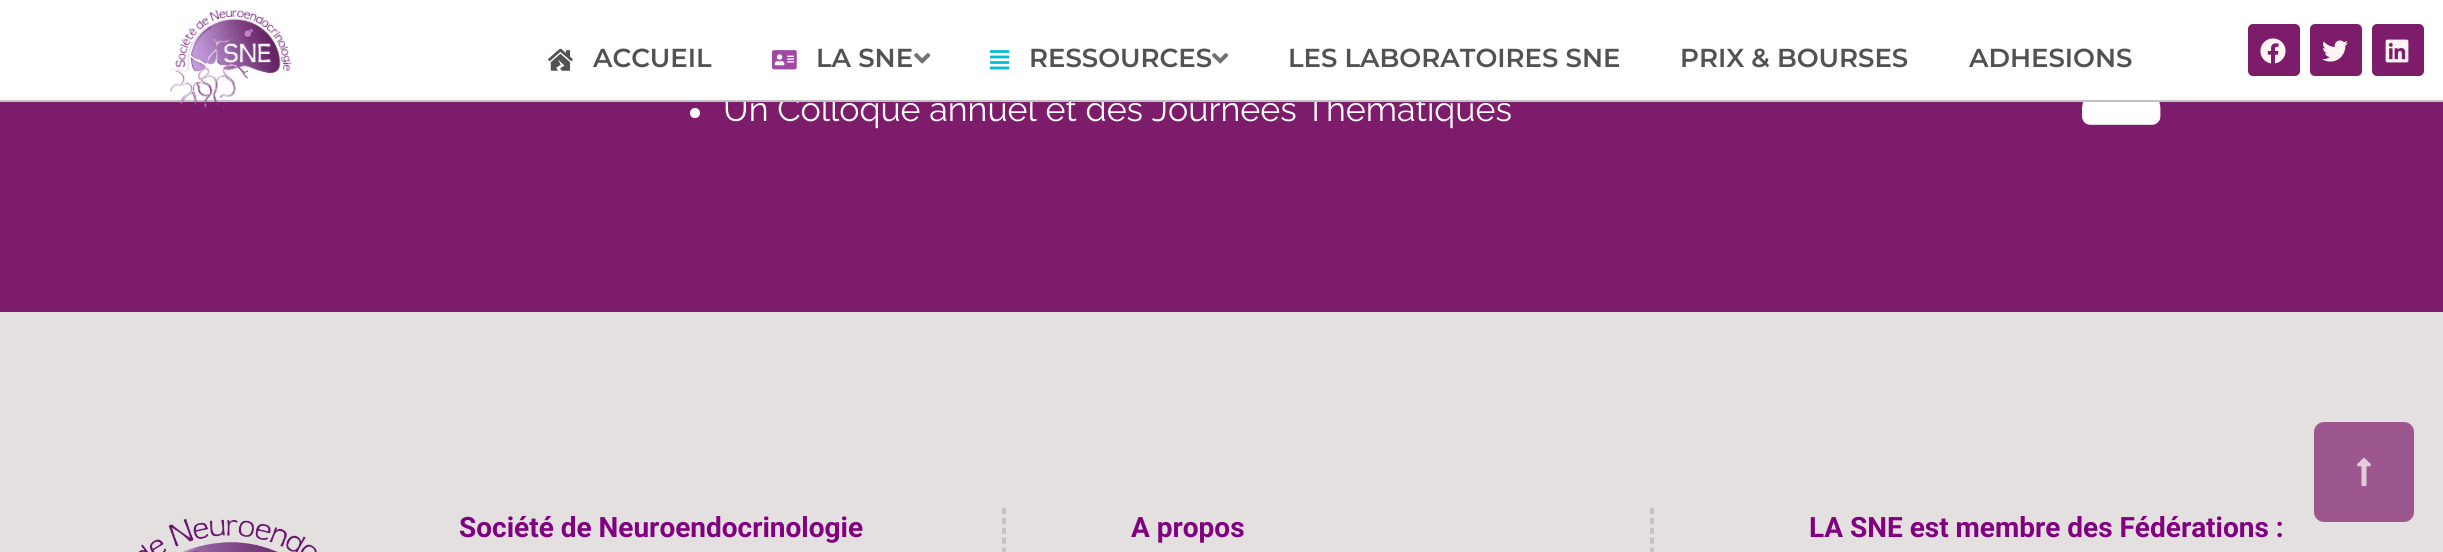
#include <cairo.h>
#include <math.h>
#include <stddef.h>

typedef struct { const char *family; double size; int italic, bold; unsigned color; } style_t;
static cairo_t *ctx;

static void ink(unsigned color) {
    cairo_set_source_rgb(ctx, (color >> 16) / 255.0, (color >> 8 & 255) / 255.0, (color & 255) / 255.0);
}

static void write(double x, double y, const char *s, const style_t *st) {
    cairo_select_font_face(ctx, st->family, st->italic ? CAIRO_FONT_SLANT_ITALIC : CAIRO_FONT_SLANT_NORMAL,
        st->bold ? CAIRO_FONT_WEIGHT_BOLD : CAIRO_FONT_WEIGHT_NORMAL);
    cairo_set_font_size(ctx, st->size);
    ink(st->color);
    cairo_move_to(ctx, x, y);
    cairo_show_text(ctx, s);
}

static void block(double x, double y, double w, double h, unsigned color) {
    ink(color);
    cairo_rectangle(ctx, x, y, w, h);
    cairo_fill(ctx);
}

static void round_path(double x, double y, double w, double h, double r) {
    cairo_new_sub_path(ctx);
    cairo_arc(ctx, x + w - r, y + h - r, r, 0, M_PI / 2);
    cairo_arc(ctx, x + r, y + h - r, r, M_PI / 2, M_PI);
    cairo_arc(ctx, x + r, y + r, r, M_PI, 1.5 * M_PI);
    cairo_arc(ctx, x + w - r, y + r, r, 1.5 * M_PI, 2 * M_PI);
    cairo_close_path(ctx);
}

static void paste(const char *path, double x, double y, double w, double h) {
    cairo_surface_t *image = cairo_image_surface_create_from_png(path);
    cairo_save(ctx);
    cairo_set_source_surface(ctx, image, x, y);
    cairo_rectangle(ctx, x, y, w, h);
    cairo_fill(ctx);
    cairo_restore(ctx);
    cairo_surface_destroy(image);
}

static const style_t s1 = {"Raleway", 34, 0, 0, 0xffffff};
static const style_t s2 = {"Montserrat SemiBold", 26, 0, 0, 0x525252};
static const style_t s3 = {"Roboto", 28, 0, 1, 0x800080};

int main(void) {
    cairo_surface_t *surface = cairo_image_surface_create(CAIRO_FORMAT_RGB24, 2443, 552);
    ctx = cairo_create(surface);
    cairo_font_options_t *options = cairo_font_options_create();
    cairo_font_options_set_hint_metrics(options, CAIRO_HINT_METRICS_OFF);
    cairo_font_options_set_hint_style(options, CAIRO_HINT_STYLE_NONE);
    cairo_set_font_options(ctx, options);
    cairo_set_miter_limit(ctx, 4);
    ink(0x7d1c6b);
    cairo_paint(ctx);
    block(0, 0, 2443, 100, 0xffffff);
    write(723, 121, "Un Colloque annuel et des Journées Thématiques", &s1);
    block(0, 100, 2443, 2, 0xc2c2c2);
    paste("pic1.png", 170, 9, 122, 105);
    paste("pic2.png", 548, 48, 25, 23);
    write(593, 67, "ACCUEIL", &s2);
    paste("pic3.png", 772, 50, 25, 20);
    write(816, 67, "LA SNE", &s2);
    paste("pic4.png", 914, 53, 17, 11);
    paste("pic5.png", 990, 50, 20, 20);
    write(1029, 67, "RESSOURCES", &s2);
    paste("pic4.png", 1212, 53, 17, 11);
    write(1288, 67, "LES LABORATOIRES SNE", &s2);
    write(1680, 67, "PRIX & BOURSES", &s2);
    write(1969, 67, "ADHESIONS", &s2);
    ink(0x7d1c6b);
    round_path(2248, 24, 52, 52, 5);
    cairo_fill(ctx);
    paste("pic6.png", 2260, 38, 26, 26);
    round_path(2310, 24, 52, 52, 5);
    cairo_fill(ctx);
    paste("pic7.png", 2322, 40, 26, 22);
    round_path(2372, 24, 52, 52, 5);
    cairo_fill(ctx);
    paste("pic8.png", 2385, 39, 24, 24);
    ink(0xffffff);
    cairo_arc(ctx, 695, 113, 5, 0, 2 * M_PI);
    cairo_fill(ctx);
    paste("pic9.png", 2082, 102, 79, 23);
    block(0, 312, 2443, 240, 0xe4e0e0);
    ink(0x9c578e);
    round_path(2314, 422, 100, 100, 10);
    cairo_fill(ctx);
    paste("pic10.png", 2357, 458, 14, 28);
    paste("pic11.png", 138, 519, 179, 33);
    write(459, 537, "Société de Neuroendocrinologie", &s3);
    cairo_new_path(ctx);
    cairo_move_to(ctx, 1005, 508);
    cairo_line_to(ctx, 1005, 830);
    cairo_move_to(ctx, 1003, 508);
    cairo_line_to(ctx, 1003, 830);
    ink(0xc3c3c3);
    cairo_set_dash(ctx, (double[]){6, 3.88}, 2, 0);
    cairo_stroke(ctx);
    write(1131, 537, "A propos", &s3);
    cairo_new_path(ctx);
    cairo_move_to(ctx, 1653, 508);
    cairo_line_to(ctx, 1653, 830);
    cairo_move_to(ctx, 1651, 508);
    cairo_line_to(ctx, 1651, 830);
    ink(0xc3c3c3);
    cairo_stroke(ctx);
    write(1809, 537, "LA SNE est membre des Fédérations :", &s3);
    cairo_surface_write_to_png(surface, "screenshot.png");
    cairo_font_options_destroy(options);
    cairo_destroy(ctx);
    cairo_surface_destroy(surface);
    return 0;
}
